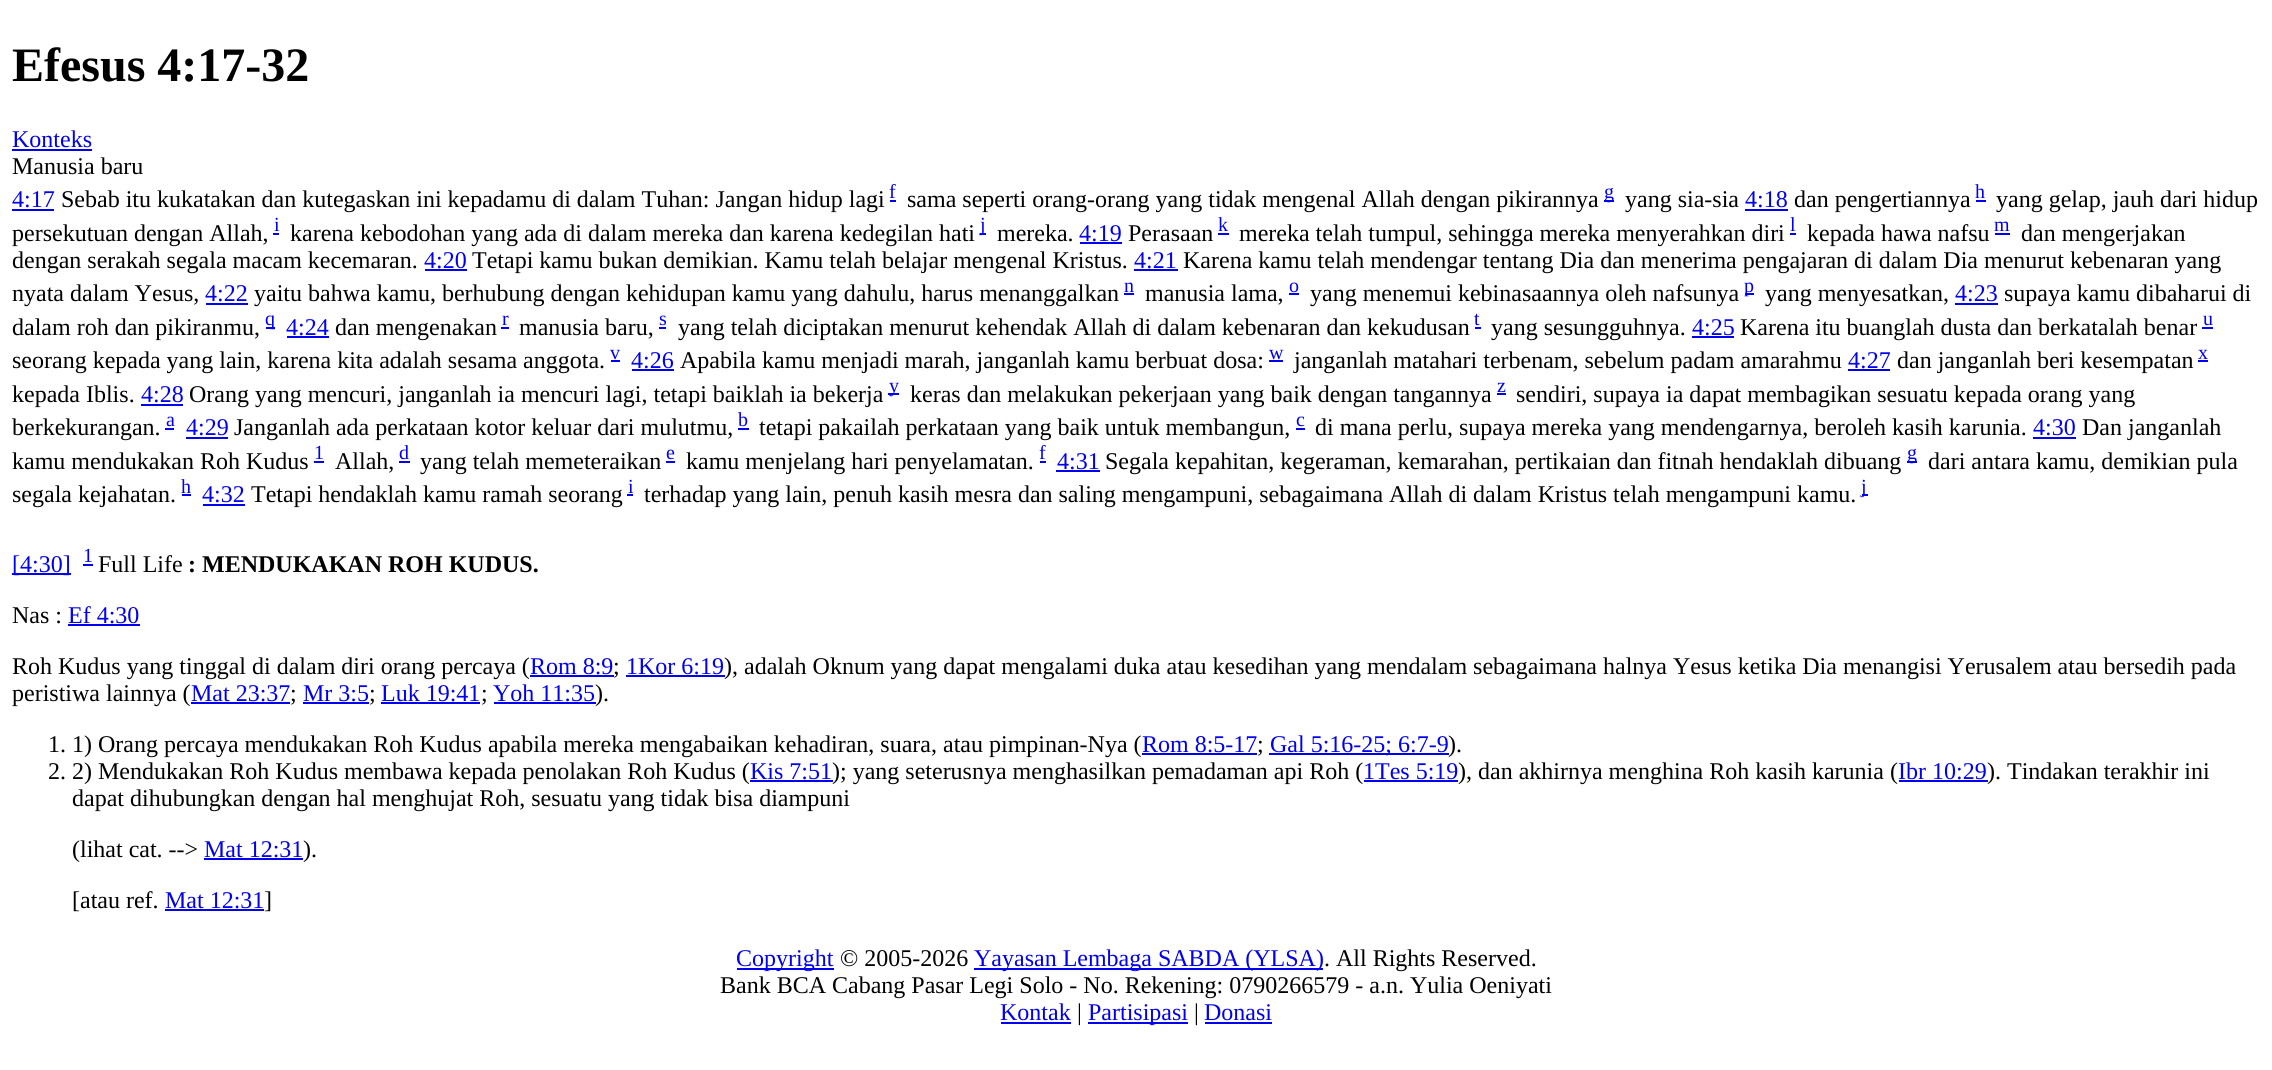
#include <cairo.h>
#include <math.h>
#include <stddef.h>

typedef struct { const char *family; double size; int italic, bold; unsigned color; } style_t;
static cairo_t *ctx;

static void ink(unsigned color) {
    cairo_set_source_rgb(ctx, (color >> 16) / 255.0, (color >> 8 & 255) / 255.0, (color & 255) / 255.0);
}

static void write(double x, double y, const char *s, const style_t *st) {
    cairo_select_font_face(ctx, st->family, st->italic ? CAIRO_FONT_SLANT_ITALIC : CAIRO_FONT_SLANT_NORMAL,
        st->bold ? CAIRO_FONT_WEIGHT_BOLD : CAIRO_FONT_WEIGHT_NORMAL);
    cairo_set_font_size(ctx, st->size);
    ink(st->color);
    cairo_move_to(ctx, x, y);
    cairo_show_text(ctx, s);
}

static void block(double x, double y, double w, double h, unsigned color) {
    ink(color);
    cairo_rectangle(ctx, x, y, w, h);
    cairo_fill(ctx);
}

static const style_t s1 = {"Liberation Serif", 48, 0, 1, 0x000000};
static const style_t s2 = {"Liberation Serif", 24, 0, 0, 0x0000ee};
static const style_t s3 = {"Liberation Serif", 24, 0, 0, 0x000000};
static const style_t s4 = {"Liberation Serif", 20, 0, 0, 0x0000ee};
static const style_t s5 = {"Liberation Serif", 24, 0, 1, 0x000000};

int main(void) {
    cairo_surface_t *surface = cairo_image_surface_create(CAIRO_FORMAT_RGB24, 2272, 1070);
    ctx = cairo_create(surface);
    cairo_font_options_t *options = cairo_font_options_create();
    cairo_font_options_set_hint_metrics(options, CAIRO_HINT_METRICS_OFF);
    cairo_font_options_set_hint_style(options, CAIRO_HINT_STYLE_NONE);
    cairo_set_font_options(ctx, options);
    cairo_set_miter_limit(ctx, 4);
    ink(0xffffff);
    cairo_paint(ctx);
    write(12, 81, "Efesus 4:17-32", &s1);
    write(12, 147, "Konteks", &s2);
    block(12, 149, 80, 2, 0x0000ee);
    write(12, 174, "Manusia baru", &s3);
    write(12, 207, "4:17", &s2);
    block(12, 209, 42, 2, 0x0000ee);
    write(61, 207, "Sebab itu kukatakan dan kutegaskan ini kepadamu di dalam Tuhan: Jangan hidup lagi", &s3);
    write(889, 198, "f", &s4);
    block(890, 200, 6, 2, 0x0000ee);
    write(907, 207, "sama seperti orang-orang yang tidak mengenal Allah dengan pikirannya", &s3);
    block(1604, 200, 10, 2, 0x0000ee);
    write(1604, 198, "g", &s4);
    write(1625, 207, "yang sia-sia", &s3);
    write(1745, 207, "4:18", &s2);
    block(1745, 209, 43, 2, 0x0000ee);
    write(1794, 207, "dan pengertiannya", &s3);
    write(1975, 198, "h", &s4);
    block(1976, 200, 10, 2, 0x0000ee);
    write(1996, 207, "yang gelap, jauh dari hidup", &s3);
    write(12, 241, "persekutuan dengan Allah,", &s3);
    write(274, 231, "i", &s4);
    block(273, 233, 6, 2, 0x0000ee);
    write(290, 241, "karena kebodohan yang ada di dalam mereka dan karena kedegilan hati", &s3);
    block(980, 233, 6, 2, 0x0000ee);
    write(980, 231, "j", &s4);
    write(997, 241, "mereka.", &s3);
    write(1079, 241, "4:19", &s2);
    block(1080, 242, 42, 2, 0x0000ee);
    write(1128, 241, "Perasaan", &s3);
    write(1218, 231, "k", &s4);
    block(1218, 233, 11, 2, 0x0000ee);
    write(1239, 241, "mereka telah tumpul, sehingga mereka menyerahkan diri", &s3);
    write(1790, 231, "l", &s4);
    block(1790, 233, 6, 2, 0x0000ee);
    write(1807, 241, "kepada hawa nafsu", &s3);
    write(1994, 231, "m", &s4);
    block(1995, 233, 15, 2, 0x0000ee);
    write(2021, 241, "dan mengerjakan", &s3);
    write(12, 268, "dengan serakah segala macam kecemaran.", &s3);
    write(424, 268, "4:20", &s2);
    block(425, 269, 42, 2, 0x0000ee);
    write(472, 268, "Tetapi kamu bukan demikian. Kamu telah belajar mengenal Kristus.", &s3);
    write(1134, 268, "4:21", &s2);
    block(1134, 269, 44, 2, 0x0000ee);
    write(1183, 268, "Karena kamu telah mendengar tentang Dia dan menerima pengajaran di dalam Dia menurut kebenaran yang", &s3);
    write(12, 301, "nyata dalam Yesus,", &s3);
    write(205, 301, "4:22", &s2);
    block(206, 303, 42, 2, 0x0000ee);
    write(254, 301, "yaitu bahwa kamu, berhubung dengan kehidupan kamu yang dahulu, harus menanggalkan", &s3);
    write(1124, 292, "n", &s4);
    block(1124, 293, 10, 2, 0x0000ee);
    write(1145, 301, "manusia lama,", &s3);
    write(1289, 292, "o", &s4);
    block(1289, 293, 10, 2, 0x0000ee);
    write(1310, 301, "yang menemui kebinasaannya oleh nafsunya", &s3);
    block(1745, 293, 9, 2, 0x0000ee);
    write(1744, 292, "p", &s4);
    write(1765, 301, "yang menyesatkan,", &s3);
    write(1955, 301, "4:23", &s2);
    block(1955, 303, 43, 2, 0x0000ee);
    write(2004, 301, "supaya kamu dibaharui di", &s3);
    write(12, 335, "dalam roh dan pikiranmu,", &s3);
    block(266, 327, 9, 2, 0x0000ee);
    write(265, 325, "q", &s4);
    write(286, 335, "4:24", &s2);
    block(287, 336, 42, 2, 0x0000ee);
    write(335, 335, "dan mengenakan", &s3);
    write(502, 325, "r", &s4);
    block(501, 327, 8, 2, 0x0000ee);
    write(519, 335, "manusia baru,", &s3);
    write(659, 325, "s", &s4);
    block(659, 327, 7, 2, 0x0000ee);
    write(678, 335, "yang telah diciptakan menurut kehendak Allah di dalam kebenaran dan kekudusan", &s3);
    write(1474, 325, "t", &s4);
    block(1475, 327, 6, 2, 0x0000ee);
    write(1491, 335, "yang sesungguhnya.", &s3);
    write(1692, 335, "4:25", &s2);
    block(1692, 336, 42, 2, 0x0000ee);
    write(1740, 335, "Karena itu buanglah dusta dan berkatalah benar", &s3);
    write(2203, 325, "u", &s4);
    block(2202, 327, 11, 2, 0x0000ee);
    write(12, 368, "seorang kepada yang lain, karena kita adalah sesama anggota.", &s3);
    write(610, 359, "v", &s4);
    block(611, 360, 9, 2, 0x0000ee);
    write(631, 368, "4:26", &s2);
    block(632, 369, 42, 2, 0x0000ee);
    write(680, 368, "Apabila kamu menjadi marah, janganlah kamu berbuat dosa:", &s3);
    write(1269, 359, "w", &s4);
    block(1269, 360, 14, 2, 0x0000ee);
    write(1294, 368, "janganlah matahari terbenam, sebelum padam amarahmu", &s3);
    write(1848, 368, "4:27", &s2);
    block(1848, 369, 42, 2, 0x0000ee);
    write(1897, 368, "dan janganlah beri kesempatan", &s3);
    write(2198, 359, "x", &s4);
    block(2198, 360, 10, 2, 0x0000ee);
    write(12, 402, "kepada Iblis.", &s3);
    write(141, 402, "4:28", &s2);
    block(141, 404, 42, 2, 0x0000ee);
    write(189, 402, "Orang yang mencuri, janganlah ia mencuri lagi, tetapi baiklah ia bekerja", &s3);
    block(888, 393, 11, 2, 0x0000ee);
    write(889, 392, "y", &s4);
    write(910, 402, "keras dan melakukan pekerjaan yang baik dengan tangannya", &s3);
    write(1497, 392, "z", &s4);
    block(1497, 393, 9, 2, 0x0000ee);
    write(1516, 402, "sendiri, supaya ia dapat membagikan sesuatu kepada orang yang", &s3);
    write(12, 435, "berkekurangan.", &s3);
    write(166, 426, "a", &s4);
    block(165, 428, 9, 2, 0x0000ee);
    write(186, 435, "4:29", &s2);
    block(186, 437, 42, 2, 0x0000ee);
    write(234, 435, "Janganlah ada perkataan kotor keluar dari mulutmu,", &s3);
    write(738, 426, "b", &s4);
    block(738, 428, 11, 2, 0x0000ee);
    write(759, 435, "tetapi pakailah perkataan yang baik untuk membangun,", &s3);
    write(1296, 426, "c", &s4);
    block(1296, 428, 9, 2, 0x0000ee);
    write(1315, 435, "di mana perlu, supaya mereka yang mendengarnya, beroleh kasih karunia.", &s3);
    write(2033, 435, "4:30", &s2);
    block(2033, 437, 43, 2, 0x0000ee);
    write(2082, 435, "Dan janganlah", &s3);
    write(12, 469, "kamu mendukakan Roh Kudus", &s3);
    write(314, 459, "1", &s4);
    block(314, 461, 10, 2, 0x0000ee);
    write(335, 469, "Allah,", &s3);
    write(399, 459, "d", &s4);
    block(399, 461, 11, 2, 0x0000ee);
    write(420, 469, "yang telah memeteraikan", &s3);
    write(666, 459, "e", &s4);
    block(666, 461, 9, 2, 0x0000ee);
    write(686, 469, "kamu menjelang hari penyelamatan.", &s3);
    write(1039, 459, "f", &s4);
    block(1040, 461, 6, 2, 0x0000ee);
    write(1057, 469, "4:31", &s2);
    block(1056, 470, 44, 2, 0x0000ee);
    write(1105, 469, "Segala kepahitan, kegeraman, kemarahan, pertikaian dan fitnah hendaklah dibuang", &s3);
    block(1907, 461, 10, 2, 0x0000ee);
    write(1907, 459, "g", &s4);
    write(1928, 469, "dari antara kamu, demikian pula", &s3);
    write(12, 502, "segala kejahatan.", &s3);
    write(181, 493, "h", &s4);
    block(182, 494, 9, 2, 0x0000ee);
    write(202, 502, "4:32", &s2);
    block(203, 504, 42, 2, 0x0000ee);
    write(251, 502, "Tetapi hendaklah kamu ramah seorang", &s3);
    write(628, 493, "i", &s4);
    block(627, 494, 6, 2, 0x0000ee);
    write(644, 502, "terhadap yang lain, penuh kasih mesra dan saling mengampuni, sebagaimana Allah di dalam Kristus telah mengampuni kamu.", &s3);
    block(1862, 494, 6, 2, 0x0000ee);
    write(1861, 493, "j", &s4);
    block(12, 573, 59, 2, 0x0000ee);
    write(12, 572, "[4:30]", &s2);
    write(83, 562, "1", &s4);
    block(83, 564, 10, 2, 0x0000ee);
    write(98, 572, "Full Life", &s3);
    write(188, 572, ": MENDUKAKAN ROH KUDUS.", &s5);
    write(12, 623, "Nas :", &s3);
    write(68, 623, "Ef 4:30", &s2);
    block(68, 624, 72, 2, 0x0000ee);
    write(12, 674, "Roh Kudus yang tinggal di dalam diri orang percaya (", &s3);
    write(530, 674, "Rom 8:9", &s2);
    block(530, 675, 84, 2, 0x0000ee);
    write(613, 674, ";", &s3);
    write(626, 674, "1Kor 6:19", &s2);
    block(626, 675, 99, 2, 0x0000ee);
    write(724, 674, "), adalah Oknum yang dapat mengalami duka atau kesedihan yang mendalam sebagaimana halnya Yesus ketika Dia menangisi Yerusalem atau bersedih pada", &s3);
    write(12, 701, "peristiwa lainnya (", &s3);
    write(191, 701, "Mat 23:37", &s2);
    block(191, 702, 99, 2, 0x0000ee);
    write(290, 701, ";", &s3);
    write(303, 701, "Mr 3:5", &s2);
    block(303, 702, 66, 2, 0x0000ee);
    write(369, 701, ";", &s3);
    write(381, 701, "Luk 19:41", &s2);
    block(381, 702, 99, 2, 0x0000ee);
    write(481, 701, ";", &s3);
    write(493, 701, "Yoh 11:35", &s2);
    block(494, 702, 102, 2, 0x0000ee);
    write(595, 701, ").", &s3);
    write(48, 752, "1. 1) Orang percaya mendukakan Roh Kudus apabila mereka mengabaikan kehadiran, suara, atau pimpinan-Nya (", &s3);
    write(1142, 752, "Rom 8:5-17", &s2);
    block(1142, 753, 115, 2, 0x0000ee);
    write(1257, 752, ";", &s3);
    block(1269, 753, 180, 2, 0x0000ee);
    write(1270, 752, "Gal 5:16-25; 6:7-9", &s2);
    write(1448, 752, ").", &s3);
    write(48, 779, "2. 2) Mendukakan Roh Kudus membawa kepada penolakan Roh Kudus (", &s3);
    write(750, 779, "Kis 7:51", &s2);
    block(750, 780, 83, 2, 0x0000ee);
    write(832, 779, "); yang seterusnya menghasilkan pemadaman api Roh (", &s3);
    write(1363, 779, "1Tes 5:19", &s2);
    block(1364, 780, 94, 2, 0x0000ee);
    write(1458, 779, "), dan akhirnya menghina Roh kasih karunia (", &s3);
    write(1898, 779, "Ibr 10:29", &s2);
    block(1899, 780, 89, 2, 0x0000ee);
    write(1987, 779, "). Tindakan terakhir ini", &s3);
    write(72, 806, "dapat dihubungkan dengan hal menghujat Roh, sesuatu yang tidak bisa diampuni", &s3);
    write(72, 857, "(lihat cat. -->", &s3);
    write(204, 857, "Mat 12:31", &s2);
    block(204, 858, 99, 2, 0x0000ee);
    write(303, 857, ").", &s3);
    write(72, 908, "[atau ref.", &s3);
    write(165, 908, "Mat 12:31", &s2);
    block(165, 909, 99, 2, 0x0000ee);
    write(264, 908, "]", &s3);
    block(737, 968, 97, 2, 0x0000ee);
    write(736, 966, "Copyright", &s2);
    write(840, 966, "© 2005-2026", &s3);
    block(974, 968, 349, 2, 0x0000ee);
    write(974, 966, "Yayasan Lembaga SABDA (YLSA)", &s2);
    write(1324, 966, ". All Rights Reserved.", &s3);
    write(720, 993, "Bank BCA Cabang Pasar Legi Solo - No. Rekening: 0790266579 - a.n. Yulia Oeniyati", &s3);
    write(1000, 1020, "Kontak", &s2);
    block(1001, 1022, 70, 2, 0x0000ee);
    write(1077, 1020, "|", &s3);
    block(1088, 1022, 100, 2, 0x0000ee);
    write(1088, 1020, "Partisipasi", &s2);
    write(1194, 1020, "|", &s3);
    write(1204, 1020, "Donasi", &s2);
    block(1205, 1022, 67, 2, 0x0000ee);
    cairo_surface_write_to_png(surface, "screenshot.png");
    cairo_font_options_destroy(options);
    cairo_destroy(ctx);
    cairo_surface_destroy(surface);
    return 0;
}
